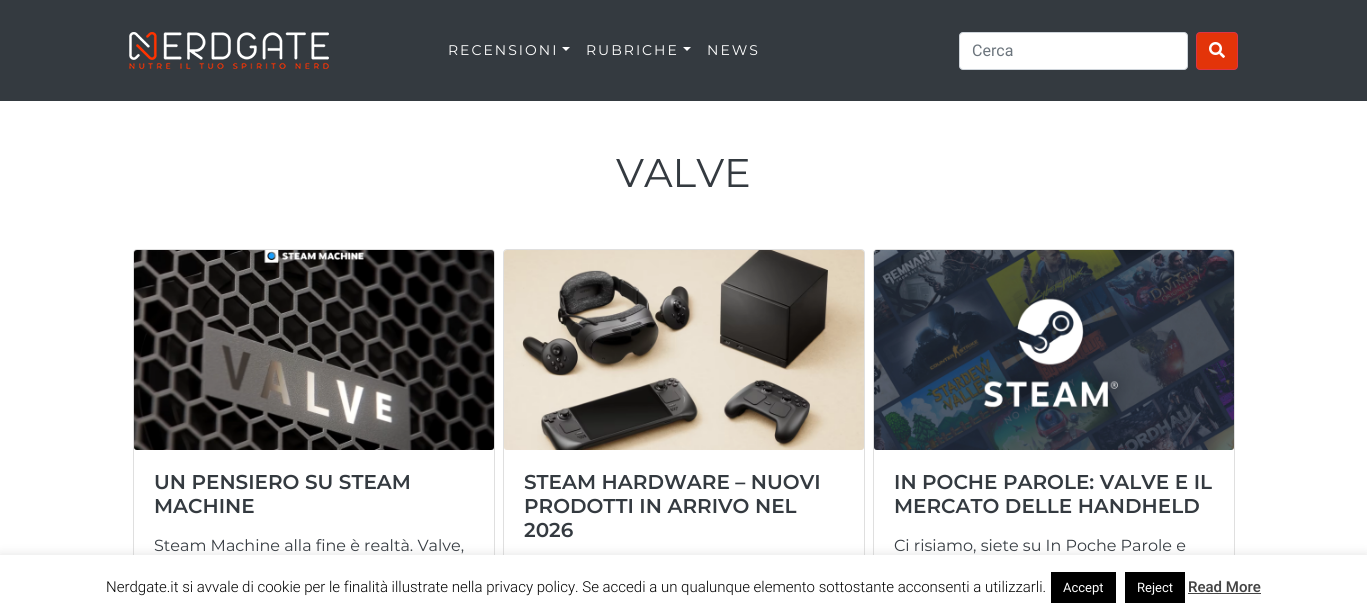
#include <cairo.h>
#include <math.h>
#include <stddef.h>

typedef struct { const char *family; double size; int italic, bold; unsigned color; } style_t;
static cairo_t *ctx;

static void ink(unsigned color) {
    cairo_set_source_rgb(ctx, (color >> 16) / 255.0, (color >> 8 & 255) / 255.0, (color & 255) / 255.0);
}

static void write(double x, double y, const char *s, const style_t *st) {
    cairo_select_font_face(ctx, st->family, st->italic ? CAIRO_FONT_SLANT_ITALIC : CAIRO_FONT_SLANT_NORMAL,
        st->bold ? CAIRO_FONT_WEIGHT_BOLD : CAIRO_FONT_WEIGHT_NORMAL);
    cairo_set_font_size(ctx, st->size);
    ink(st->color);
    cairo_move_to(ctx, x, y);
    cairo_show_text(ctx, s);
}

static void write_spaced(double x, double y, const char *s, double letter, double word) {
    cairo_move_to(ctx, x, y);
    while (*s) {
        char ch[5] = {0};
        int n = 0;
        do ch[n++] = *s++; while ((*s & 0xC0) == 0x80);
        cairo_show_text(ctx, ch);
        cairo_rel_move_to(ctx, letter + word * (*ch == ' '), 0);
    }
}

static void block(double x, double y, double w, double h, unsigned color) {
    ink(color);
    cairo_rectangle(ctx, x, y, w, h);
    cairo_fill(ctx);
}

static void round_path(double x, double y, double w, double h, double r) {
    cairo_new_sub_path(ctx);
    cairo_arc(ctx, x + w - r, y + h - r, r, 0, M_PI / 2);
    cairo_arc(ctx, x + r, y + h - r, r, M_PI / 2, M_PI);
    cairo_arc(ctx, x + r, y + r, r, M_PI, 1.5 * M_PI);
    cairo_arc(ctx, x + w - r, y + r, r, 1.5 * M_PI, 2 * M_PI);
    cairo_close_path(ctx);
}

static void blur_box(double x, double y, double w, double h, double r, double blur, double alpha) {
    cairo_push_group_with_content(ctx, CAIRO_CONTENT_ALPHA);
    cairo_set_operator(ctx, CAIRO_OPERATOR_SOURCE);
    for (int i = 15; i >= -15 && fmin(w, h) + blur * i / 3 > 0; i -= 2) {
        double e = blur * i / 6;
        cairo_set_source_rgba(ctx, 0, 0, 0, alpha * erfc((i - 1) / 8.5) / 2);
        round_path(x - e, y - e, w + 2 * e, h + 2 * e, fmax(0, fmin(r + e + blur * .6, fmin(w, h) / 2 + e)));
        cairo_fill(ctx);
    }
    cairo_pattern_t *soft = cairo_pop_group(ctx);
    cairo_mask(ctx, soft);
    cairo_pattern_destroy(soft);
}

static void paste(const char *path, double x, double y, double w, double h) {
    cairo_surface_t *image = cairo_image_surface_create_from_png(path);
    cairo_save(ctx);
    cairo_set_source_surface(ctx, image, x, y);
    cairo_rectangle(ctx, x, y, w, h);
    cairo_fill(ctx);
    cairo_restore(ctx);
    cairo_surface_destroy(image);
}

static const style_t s1 = {"Roboto", 16, 0, 0, 0x6c757d};
static const style_t s2 = {"Montserrat", 40, 0, 0, 0x343a40};
static const style_t s3 = {"Montserrat SemiBold", 20, 0, 0, 0x343a40};
static const style_t s4 = {"Montserrat", 16, 0, 0, 0x343a40};
static const style_t s5 = {"Roboto Light", 15, 0, 0, 0x000000};
static const style_t s6 = {"Roboto", 13, 0, 0, 0xffffff};
static const style_t s7 = {"Roboto Medium", 15, 0, 0, 0x444444};

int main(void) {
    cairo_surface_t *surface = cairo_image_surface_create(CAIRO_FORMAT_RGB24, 1367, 615);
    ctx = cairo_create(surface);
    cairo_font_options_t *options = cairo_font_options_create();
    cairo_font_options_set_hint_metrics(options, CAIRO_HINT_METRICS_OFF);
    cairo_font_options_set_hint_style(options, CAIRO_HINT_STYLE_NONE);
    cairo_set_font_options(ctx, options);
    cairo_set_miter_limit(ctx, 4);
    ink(0xffffff);
    cairo_paint(ctx);
    block(0, 0, 1367, 101, 0x343a40);
    paste("pic1.png", 129, 32, 200, 37);
    cairo_select_font_face(ctx, "Montserrat", CAIRO_FONT_SLANT_NORMAL, CAIRO_FONT_WEIGHT_NORMAL);
    cairo_set_font_size(ctx, 14);
    ink(0xffffff);
    write_spaced(448, 55, "RECENSIONI", 2, 0);
    cairo_new_path(ctx);
    cairo_move_to(ctx, 562, 47);
    cairo_line_to(ctx, 570, 47);
    cairo_line_to(ctx, 566, 51);
    cairo_close_path(ctx);
    cairo_fill(ctx);
    write_spaced(586, 55, "RUBRICHE", 2, 0);
    cairo_new_path(ctx);
    cairo_move_to(ctx, 683, 47);
    cairo_line_to(ctx, 691, 47);
    cairo_line_to(ctx, 687, 51);
    cairo_close_path(ctx);
    cairo_fill(ctx);
    write_spaced(707, 55, "NEWS", 2, 0);
    round_path(959.5, 32.5, 228, 37, 3.5);
    cairo_fill_preserve(ctx);
    ink(0xced4da);
    cairo_set_line_width(ctx, 1);
    cairo_stroke(ctx);
    write(972, 56, "Cerca", &s1);
    ink(0xe33409);
    round_path(1196.5, 32.5, 41, 37, 3.5);
    cairo_fill_preserve(ctx);
    ink(0xdc3545);
    cairo_stroke(ctx);
    paste("pic2.png", 1209, 42, 16, 16);
    write(616, 187, "VALVE", &s2);
    round_path(133.5, 249.5, 361, 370, 3.5);
    ink(0xdfdfdf);
    cairo_stroke(ctx);
    paste("pic3.png", 134, 250, 360, 200);
    write(154, 489, "UN PENSIERO SU STEAM", &s3);
    write(154, 513, "MACHINE", &s3);
    write(154, 551, "Steam Machine alla fine è realtà. Valve,", &s4);
    round_path(503.5, 249.5, 361, 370, 3.5);
    ink(0xdfdfdf);
    cairo_stroke(ctx);
    paste("pic4.png", 504, 250, 360, 200);
    write(524, 489, "STEAM HARDWARE – NUOVI", &s3);
    write(524, 513, "PRODOTTI IN ARRIVO NEL", &s3);
    write(524, 537, "2026", &s3);
    round_path(873.5, 249.5, 361, 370, 3.5);
    ink(0xdfdfdf);
    cairo_stroke(ctx);
    paste("pic5.png", 874, 250, 360, 200);
    write(894, 489, "IN POCHE PAROLE: VALVE E IL", &s3);
    write(894, 513, "MERCATO DELLE HANDHELD", &s3);
    write(894, 551, "Ci risiamo, siete su In Poche Parole e", &s4);
    ink(0xacabab);
    blur_box(0, 554, 1367, 60, 0, 5, 0.3);
    block(0, 555, 1367, 60, 0xffffff);
    write(106, 592, "Nerdgate.it si avvale di cookie per le finalità illustrate nella privacy policy. Se accedi a un qualunque elemento sottostante acconsenti a utilizzarli.", &s5);
    block(1051, 572, 65, 31, 0x000000);
    write(1063, 592, "Accept", &s6);
    block(1125, 572, 60, 31, 0x000000);
    write(1137, 592, "Reject", &s6);
    write(1188, 592, "Read More", &s7);
    block(1188, 593, 73, 1, 0x444444);
    cairo_surface_write_to_png(surface, "screenshot.png");
    cairo_font_options_destroy(options);
    cairo_destroy(ctx);
    cairo_surface_destroy(surface);
    return 0;
}
